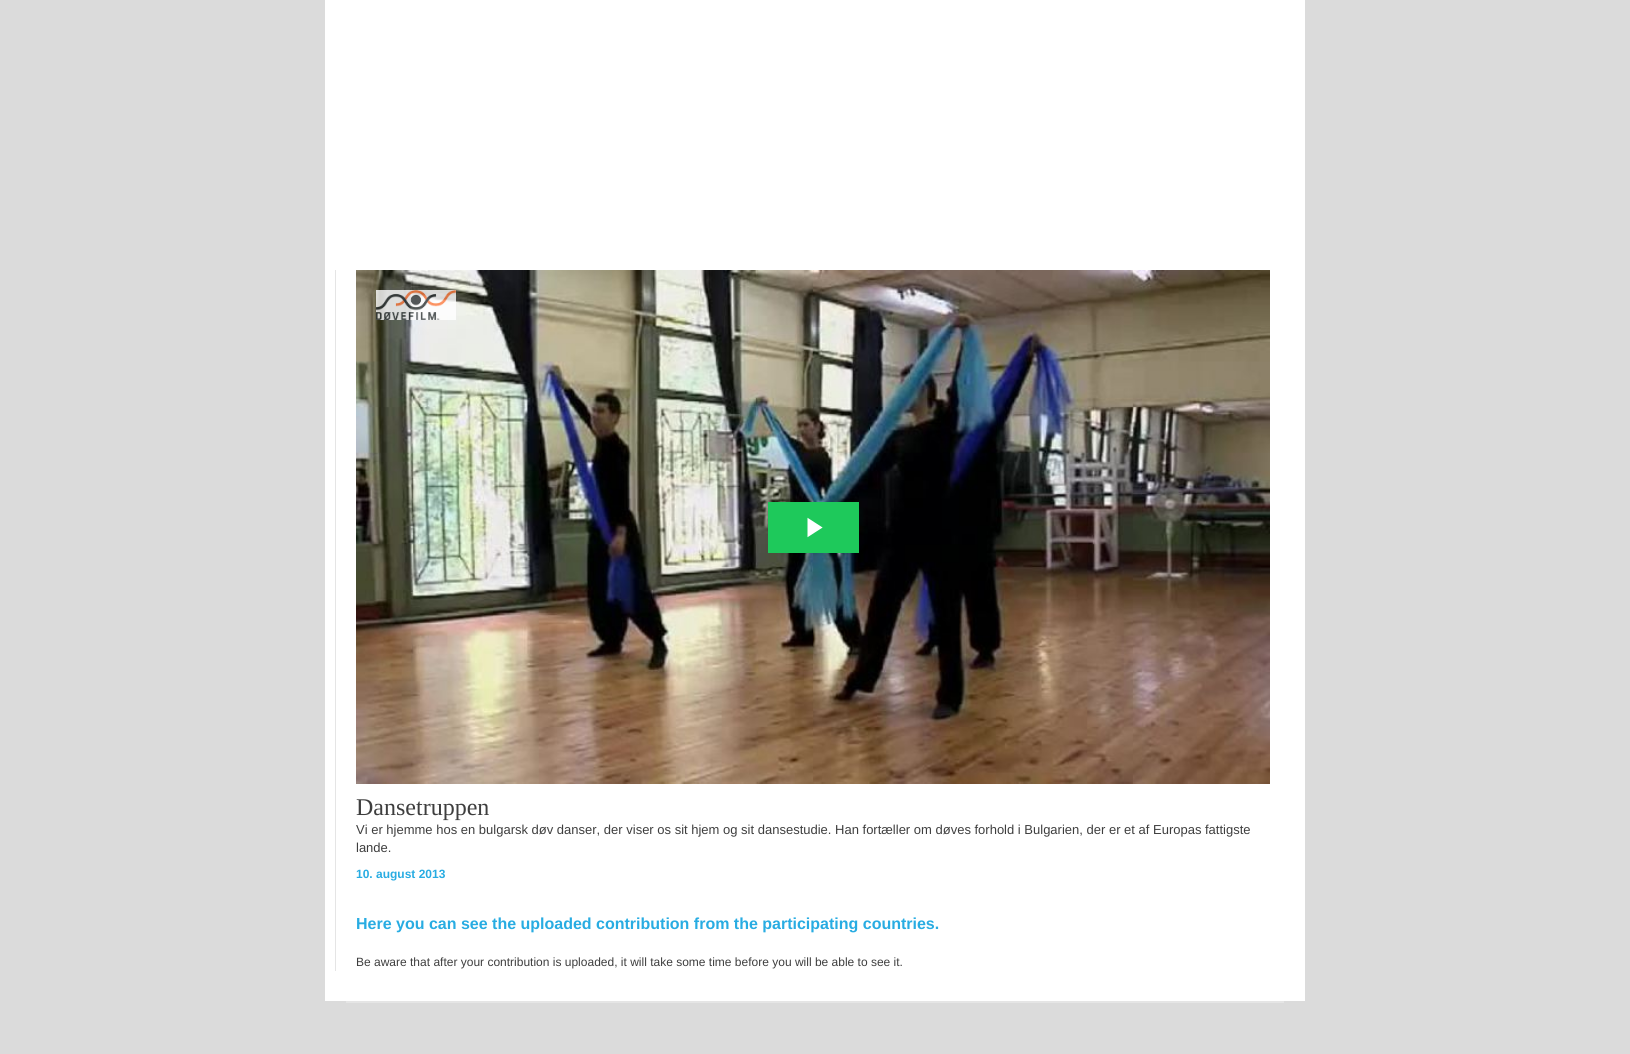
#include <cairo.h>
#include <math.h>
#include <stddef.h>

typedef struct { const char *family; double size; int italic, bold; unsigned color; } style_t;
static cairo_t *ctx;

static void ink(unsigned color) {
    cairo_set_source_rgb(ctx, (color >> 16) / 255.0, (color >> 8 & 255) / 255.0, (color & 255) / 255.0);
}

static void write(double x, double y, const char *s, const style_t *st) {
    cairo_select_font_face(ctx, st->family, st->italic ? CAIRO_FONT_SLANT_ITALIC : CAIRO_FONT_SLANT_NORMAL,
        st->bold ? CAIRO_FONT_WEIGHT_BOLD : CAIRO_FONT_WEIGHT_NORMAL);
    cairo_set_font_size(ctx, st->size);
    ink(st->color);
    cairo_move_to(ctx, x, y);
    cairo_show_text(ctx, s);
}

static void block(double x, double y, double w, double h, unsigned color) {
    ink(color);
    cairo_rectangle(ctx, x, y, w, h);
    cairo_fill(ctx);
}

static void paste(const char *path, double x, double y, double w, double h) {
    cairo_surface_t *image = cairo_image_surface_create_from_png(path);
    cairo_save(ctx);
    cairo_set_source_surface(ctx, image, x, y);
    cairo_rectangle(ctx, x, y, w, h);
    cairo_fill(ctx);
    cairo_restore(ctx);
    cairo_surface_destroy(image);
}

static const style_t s1 = {"Liberation Serif", 24, 0, 0, 0x3e3e3e};
static const style_t s2 = {"Liberation Sans", 13, 0, 0, 0x3e3e3e};
static const style_t s3 = {"Liberation Sans", 12, 0, 1, 0x28ace2};
static const style_t s4 = {"Liberation Sans", 16, 0, 1, 0x28ace2};
static const style_t s5 = {"Liberation Sans", 12, 0, 0, 0x3e3e3e};

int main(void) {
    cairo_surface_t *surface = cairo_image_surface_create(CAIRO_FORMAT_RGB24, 1630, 1054);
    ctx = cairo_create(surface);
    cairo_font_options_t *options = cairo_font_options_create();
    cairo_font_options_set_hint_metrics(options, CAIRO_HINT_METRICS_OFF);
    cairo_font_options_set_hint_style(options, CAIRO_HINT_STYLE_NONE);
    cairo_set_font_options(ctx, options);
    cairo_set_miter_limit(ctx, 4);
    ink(0xdbdbdb);
    cairo_paint(ctx);
    block(325, 0, 980, 1001, 0xffffff);
    block(335, 270, 1, 701, 0xe5e5e5);
    paste("pic1.png", 356, 270, 914, 514);
    write(356, 815, "Dansetruppen", &s1);
    write(356, 834, "Vi er hjemme hos en bulgarsk døv danser, der viser os sit hjem og sit dansestudie. Han fortæller om døves forhold i Bulgarien, der er et af Europas fattigste", &s2);
    write(356, 852, "lande.", &s2);
    write(356, 878, "10. august 2013", &s3);
    write(356, 929, "Here you can see the uploaded contribution from the participating countries.", &s4);
    write(356, 966, "Be aware that after your contribution is uploaded, it will take some time before you will be able to see it.", &s5);
    block(346, 1001, 938, 2, 0xe5e5e5);
    cairo_surface_write_to_png(surface, "screenshot.png");
    cairo_font_options_destroy(options);
    cairo_destroy(ctx);
    cairo_surface_destroy(surface);
    return 0;
}
